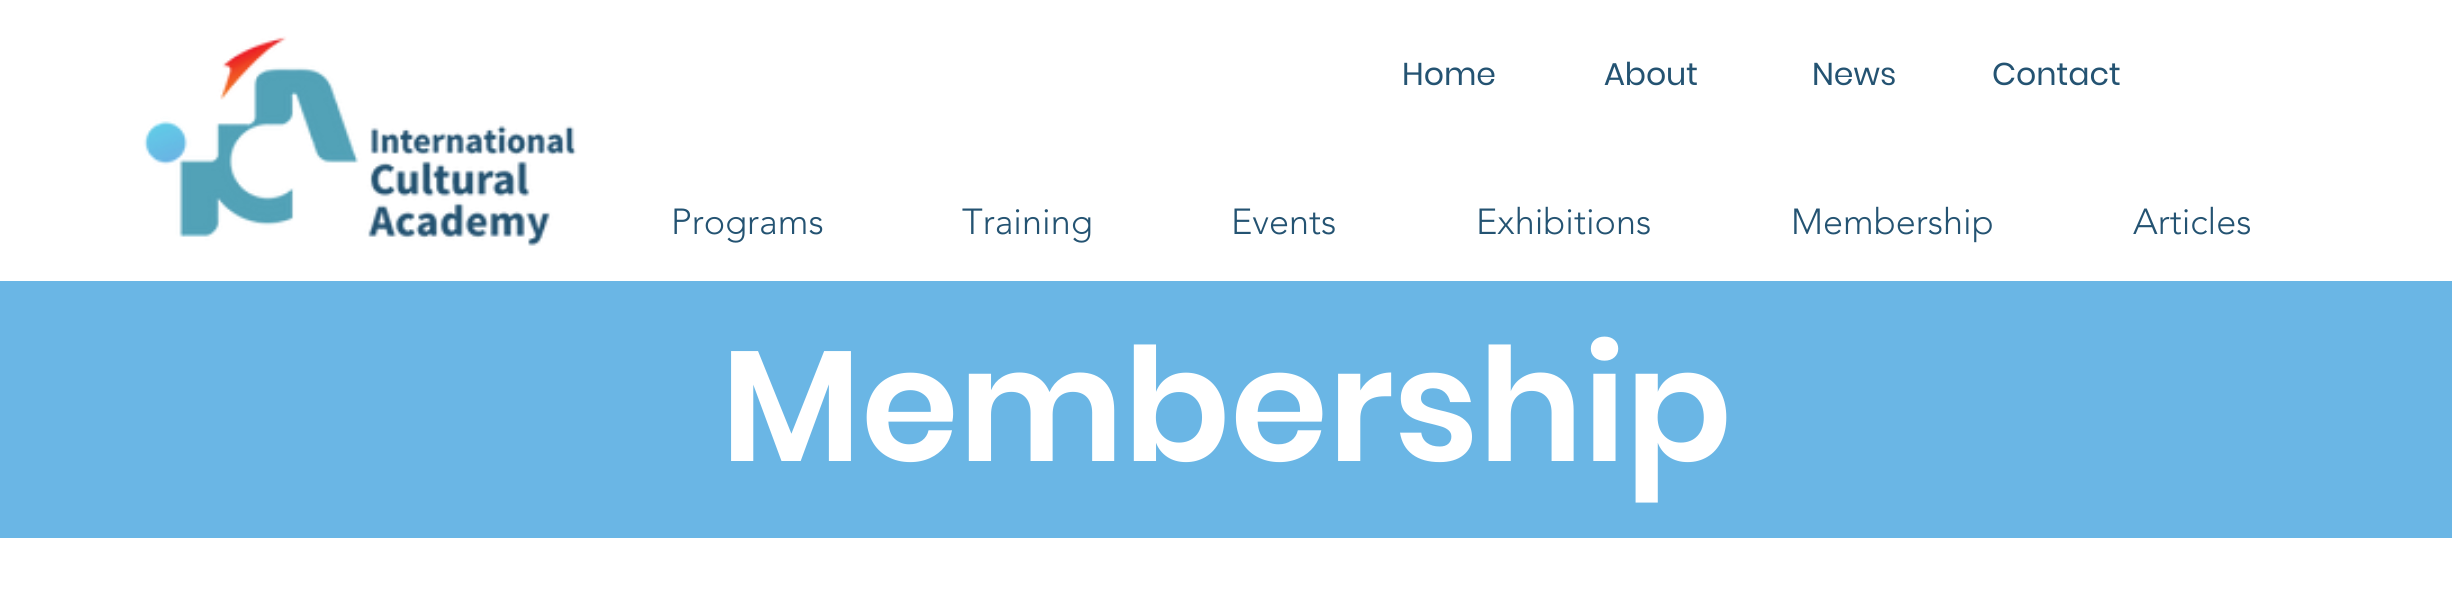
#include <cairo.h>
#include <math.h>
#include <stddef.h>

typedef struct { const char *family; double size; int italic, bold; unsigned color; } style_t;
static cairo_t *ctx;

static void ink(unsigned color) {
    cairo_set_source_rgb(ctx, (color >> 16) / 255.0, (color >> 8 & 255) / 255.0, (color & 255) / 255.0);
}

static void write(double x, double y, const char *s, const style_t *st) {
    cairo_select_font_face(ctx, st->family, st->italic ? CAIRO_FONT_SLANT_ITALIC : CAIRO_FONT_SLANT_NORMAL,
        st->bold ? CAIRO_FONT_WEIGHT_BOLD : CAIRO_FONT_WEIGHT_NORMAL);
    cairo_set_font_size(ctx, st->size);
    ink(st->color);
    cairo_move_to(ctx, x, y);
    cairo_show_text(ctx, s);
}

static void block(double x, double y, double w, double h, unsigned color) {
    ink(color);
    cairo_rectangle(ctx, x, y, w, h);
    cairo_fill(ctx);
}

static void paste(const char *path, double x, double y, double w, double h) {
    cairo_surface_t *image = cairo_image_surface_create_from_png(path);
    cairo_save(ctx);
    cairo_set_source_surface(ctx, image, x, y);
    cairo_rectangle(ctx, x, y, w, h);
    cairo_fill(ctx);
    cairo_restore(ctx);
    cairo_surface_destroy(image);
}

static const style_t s1 = {"Poppins", 31.5, 0, 0, 0x245372};
static const style_t s2 = {"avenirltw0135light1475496 Light", 36, 0, 0, 0x245372};
static const style_t s3 = {"Poppins SemiBold", 157.5, 0, 0, 0xffffff};

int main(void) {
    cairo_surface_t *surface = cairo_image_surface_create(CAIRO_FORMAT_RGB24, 2452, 608);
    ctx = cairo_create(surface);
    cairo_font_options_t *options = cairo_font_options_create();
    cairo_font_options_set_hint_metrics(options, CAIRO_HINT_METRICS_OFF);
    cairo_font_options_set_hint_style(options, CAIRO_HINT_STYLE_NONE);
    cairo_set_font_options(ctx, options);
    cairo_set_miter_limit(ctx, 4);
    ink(0xffffff);
    cairo_paint(ctx);
    paste("pic1.png", 143, 36, 434, 210);
    write(1402, 85, "Home", &s1);
    write(1604, 85, "About", &s1);
    write(1812, 85, "News", &s1);
    write(1992, 85, "Contact", &s1);
    write(671, 234, "Programs", &s2);
    write(962, 234, "Training", &s2);
    write(1231, 234, "Events", &s2);
    write(1476, 234, "Exhibitions", &s2);
    write(1791, 234, "Membership", &s2);
    write(2133, 234, "Articles", &s2);
    block(0, 281, 2452, 257, 0x6ab6e5);
    write(721, 461, "Membership", &s3);
    cairo_surface_write_to_png(surface, "screenshot.png");
    cairo_font_options_destroy(options);
    cairo_destroy(ctx);
    cairo_surface_destroy(surface);
    return 0;
}
